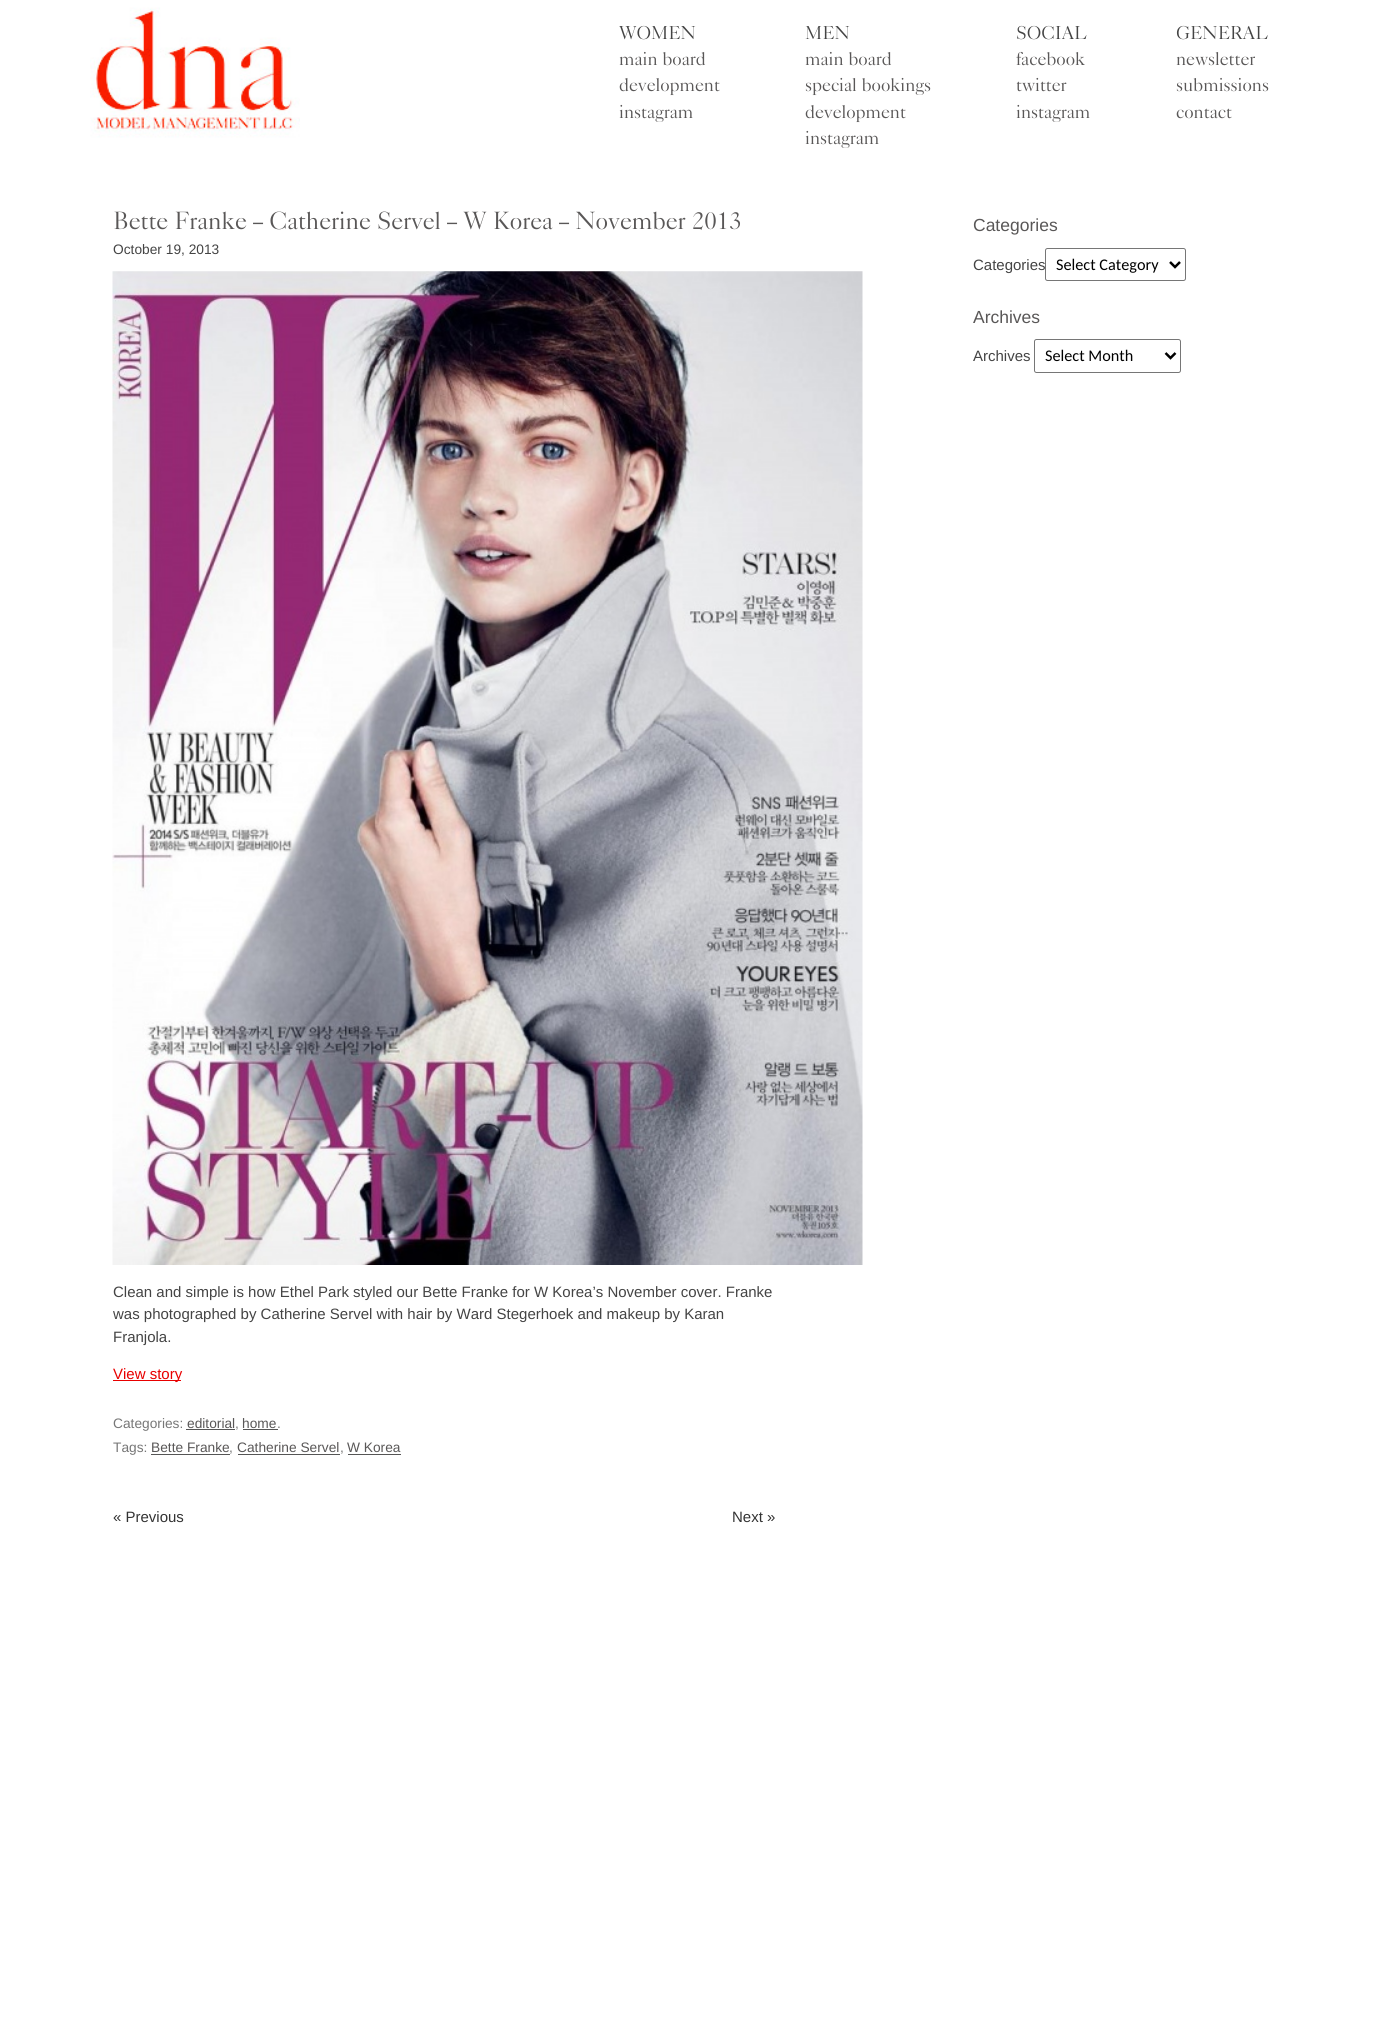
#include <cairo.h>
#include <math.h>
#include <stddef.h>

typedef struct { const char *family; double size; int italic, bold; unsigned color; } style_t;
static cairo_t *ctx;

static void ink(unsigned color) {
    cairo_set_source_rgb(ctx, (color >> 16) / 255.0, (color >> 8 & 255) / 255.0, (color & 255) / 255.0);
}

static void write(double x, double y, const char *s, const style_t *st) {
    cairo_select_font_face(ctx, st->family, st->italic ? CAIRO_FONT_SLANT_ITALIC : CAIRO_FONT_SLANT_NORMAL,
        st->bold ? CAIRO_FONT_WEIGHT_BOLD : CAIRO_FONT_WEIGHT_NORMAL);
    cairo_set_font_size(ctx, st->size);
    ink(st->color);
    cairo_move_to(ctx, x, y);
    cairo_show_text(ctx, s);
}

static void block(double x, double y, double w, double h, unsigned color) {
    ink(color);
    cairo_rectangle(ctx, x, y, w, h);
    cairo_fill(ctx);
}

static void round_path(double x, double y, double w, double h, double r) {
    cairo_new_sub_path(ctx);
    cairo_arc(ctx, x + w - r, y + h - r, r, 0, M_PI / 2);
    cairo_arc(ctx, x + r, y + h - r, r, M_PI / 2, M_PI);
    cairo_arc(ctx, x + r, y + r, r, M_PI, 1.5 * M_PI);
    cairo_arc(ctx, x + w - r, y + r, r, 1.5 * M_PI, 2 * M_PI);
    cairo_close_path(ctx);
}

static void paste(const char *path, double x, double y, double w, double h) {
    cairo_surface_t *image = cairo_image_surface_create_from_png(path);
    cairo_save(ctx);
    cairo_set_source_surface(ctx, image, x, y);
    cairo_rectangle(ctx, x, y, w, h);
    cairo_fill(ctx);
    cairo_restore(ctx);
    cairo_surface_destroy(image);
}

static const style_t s1 = {"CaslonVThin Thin", 18.75, 0, 0, 0x444444};
static const style_t s2 = {"CaslonVThin Thin", 18.75, 0, 0, 0x595757};
static const style_t s3 = {"CaslonVThin Thin", 25, 0, 0, 0x595757};
static const style_t s4 = {"Liberation Sans", 13.75, 0, 0, 0x444444};
static const style_t s5 = {"Liberation Sans", 15, 0, 0, 0x444444};
static const style_t s6 = {"Liberation Sans", 15, 0, 0, 0xe80000};
static const style_t s7 = {"Liberation Sans", 13.75, 0, 0, 0x777777};
static const style_t s8 = {"Liberation Sans", 13.75, 0, 0, 0x595757};
static const style_t s9 = {"Liberation Sans", 15, 0, 0, 0x333333};
static const style_t s10 = {"Liberation Sans", 17.5, 0, 0, 0x595757};
static const style_t s11 = {"Carlito", 16.25, 0, 0, 0x000000};

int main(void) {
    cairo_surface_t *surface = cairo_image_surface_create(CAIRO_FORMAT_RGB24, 1376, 2021);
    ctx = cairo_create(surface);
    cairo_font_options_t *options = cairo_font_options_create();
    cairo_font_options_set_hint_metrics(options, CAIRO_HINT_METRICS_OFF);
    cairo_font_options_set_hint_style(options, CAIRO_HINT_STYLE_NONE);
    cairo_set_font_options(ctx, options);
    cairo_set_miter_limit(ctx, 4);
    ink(0xffffff);
    cairo_paint(ctx);
    paste("pic1.png", 90, 7, 210, 131);
    write(619, 39, "WOMEN", &s1);
    write(619, 65, "main board", &s2);
    write(619, 91, "development", &s2);
    write(619, 118, "instagram", &s2);
    write(805, 39, "MEN", &s1);
    write(805, 65, "main board", &s2);
    write(805, 91, "special bookings", &s2);
    write(805, 118, "development", &s2);
    write(805, 144, "instagram", &s2);
    write(1016, 39, "SOCIAL", &s1);
    write(1016, 65, "facebook", &s2);
    write(1016, 91, "twitter", &s2);
    write(1016, 118, "instagram", &s2);
    write(1176, 39, "GENERAL", &s1);
    write(1176, 65, "newsletter", &s2);
    write(1176, 91, "submissions", &s2);
    write(1176, 118, "contact", &s2);
    write(113, 229, "Bette Franke – Catherine Servel – W Korea – November 2013", &s3);
    write(113, 254, "October 19, 2013", &s4);
    paste("pic2.png", 112, 271, 751, 994);
    write(113, 1297, "Clean and simple is how Ethel Park styled our Bette Franke for W Korea’s November cover. Franke", &s5);
    write(113, 1319, "was photographed by Catherine Servel with hair by Ward Stegerhoek and makeup by Karan", &s5);
    write(113, 1342, "Franjola.", &s5);
    block(113, 1380, 68, 1, 0xe80000);
    write(113, 1379, "View story", &s6);
    write(113, 1428, "Categories:", &s7);
    write(187, 1428, "editorial", &s8);
    block(186, 1429, 49, 1, 0x555555);
    write(235, 1428, ",", &s7);
    write(242, 1428, "home", &s8);
    block(243, 1429, 35, 1, 0x555555);
    write(277, 1428, ".", &s7);
    write(113, 1452, "Tags:", &s7);
    write(151, 1452, "Bette Franke", &s8);
    block(151, 1454, 79, 1, 0x555555);
    write(229, 1452, ",", &s7);
    write(237, 1452, "Catherine Servel", &s8);
    block(238, 1454, 102, 1, 0x555555);
    write(340, 1452, ",", &s7);
    write(347, 1452, "W Korea", &s8);
    block(348, 1454, 53, 1, 0x555555);
    write(113, 1522, "« Previous", &s9);
    write(732, 1522, "Next »", &s9);
    write(973, 231, "Categories", &s10);
    write(973, 270, "Categories", &s5);
    round_path(1045.5, 248.5, 140, 32, 2);
    ink(0x767676);
    cairo_set_line_width(ctx, 1);
    cairo_stroke(ctx);
    cairo_new_path(ctx);
    cairo_move_to(ctx, 1170, 262);
    cairo_line_to(ctx, 1175, 267);
    cairo_line_to(ctx, 1180, 262);
    ink(0x000000);
    cairo_set_line_width(ctx, 2.5);
    cairo_stroke(ctx);
    write(1056, 270, "Select Category", &s11);
    write(973, 323, "Archives", &s10);
    write(973, 361, "Archives", &s5);
    round_path(1034.5, 339.5, 146, 33, 2);
    ink(0x767676);
    cairo_set_line_width(ctx, 1);
    cairo_stroke(ctx);
    cairo_new_path(ctx);
    cairo_move_to(ctx, 1165.5, 353);
    cairo_line_to(ctx, 1170.5, 358);
    cairo_line_to(ctx, 1175.5, 353);
    ink(0x000000);
    cairo_set_line_width(ctx, 2.5);
    cairo_stroke(ctx);
    write(1045, 361, "Select Month", &s11);
    cairo_surface_write_to_png(surface, "screenshot.png");
    cairo_font_options_destroy(options);
    cairo_destroy(ctx);
    cairo_surface_destroy(surface);
    return 0;
}
